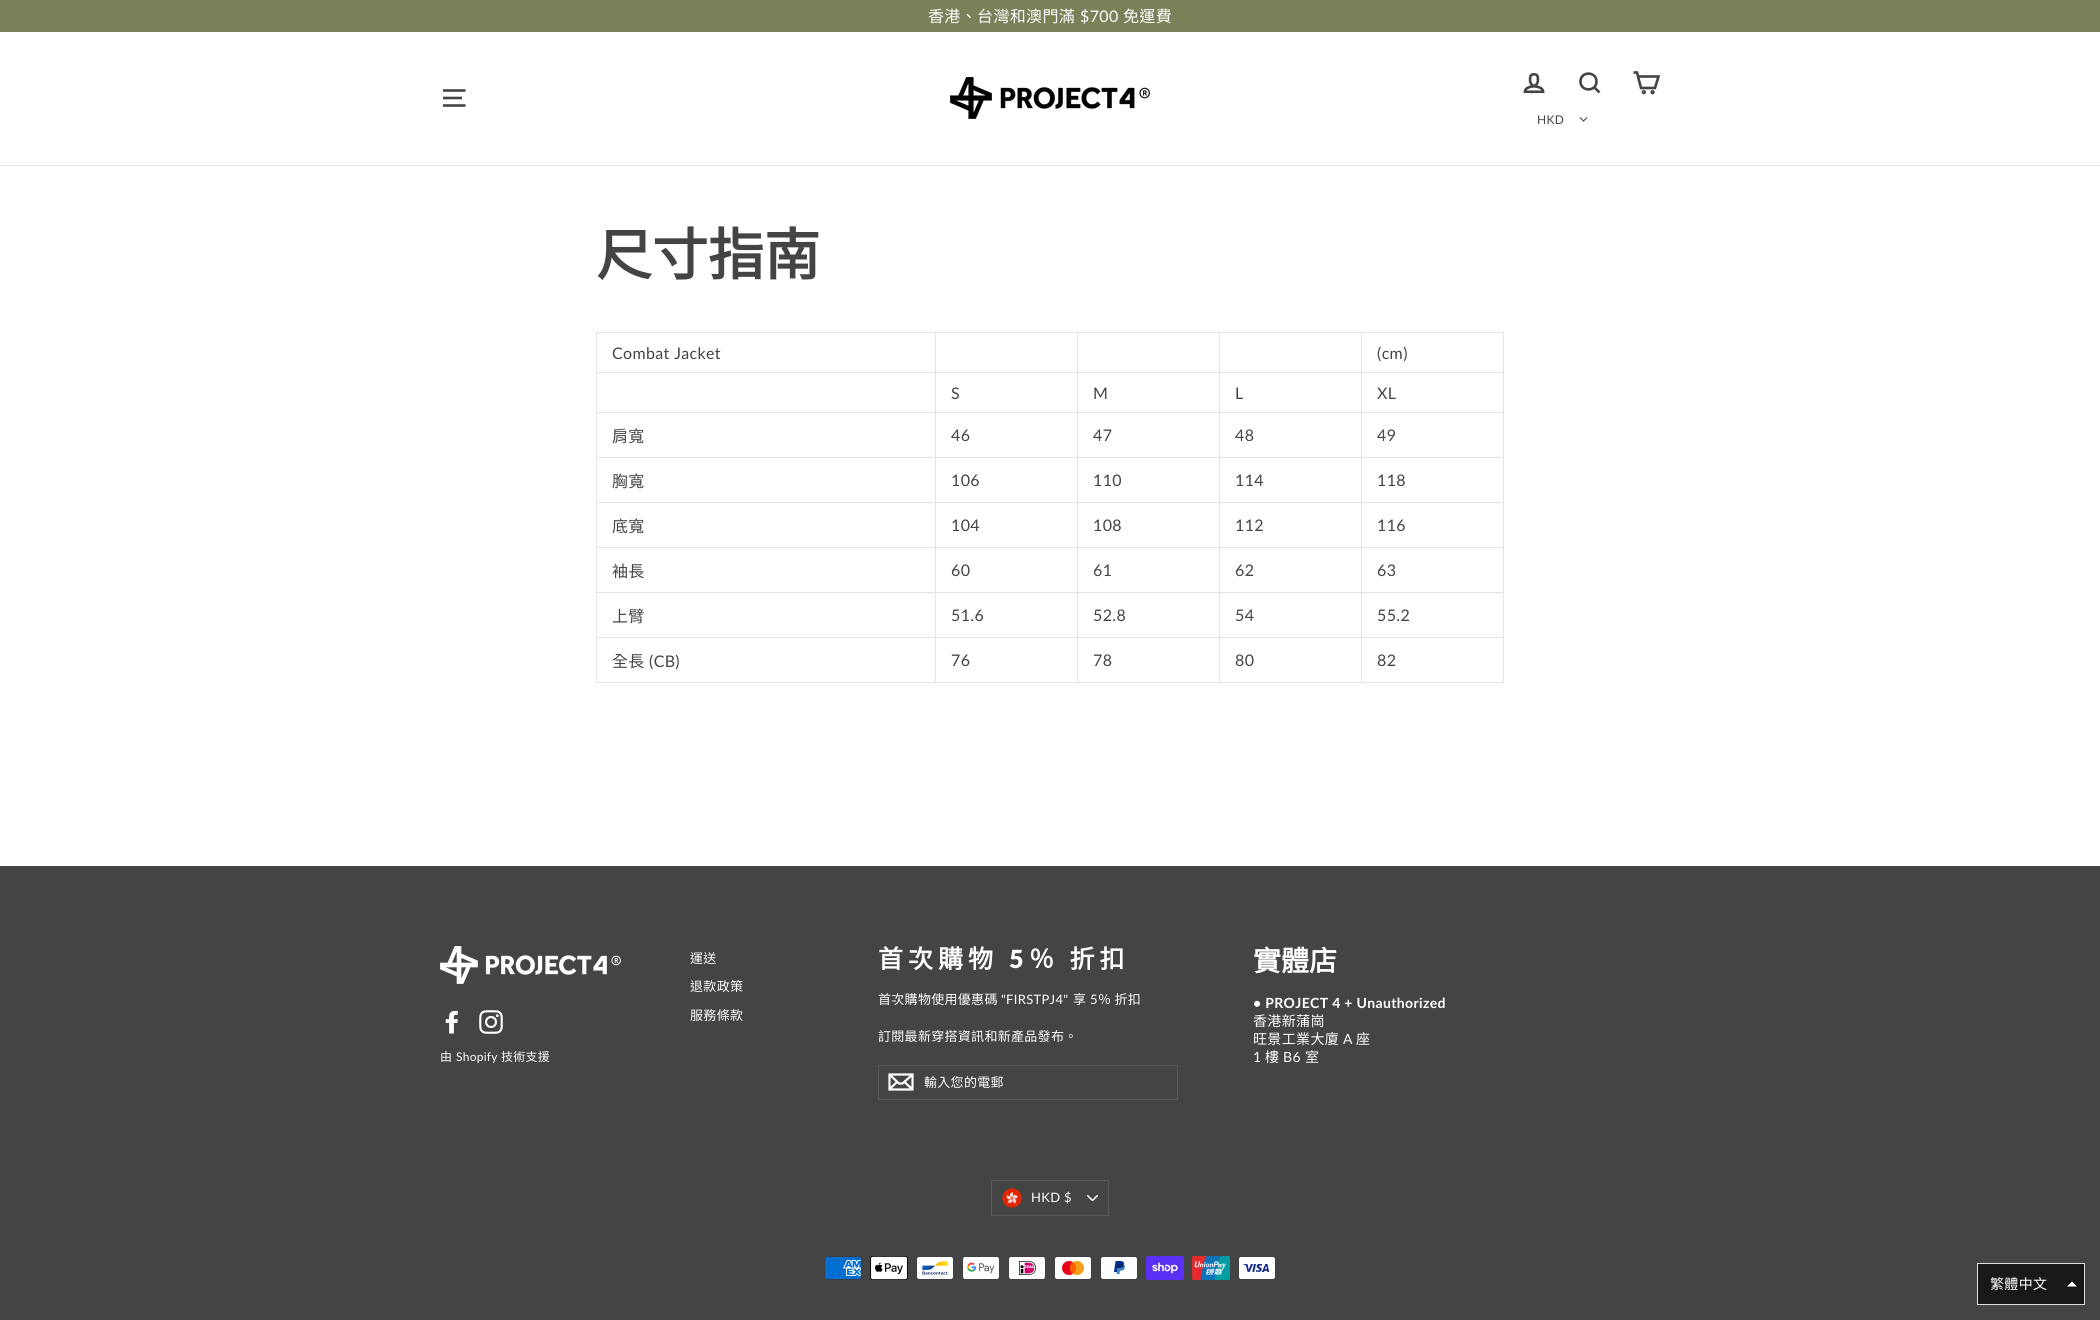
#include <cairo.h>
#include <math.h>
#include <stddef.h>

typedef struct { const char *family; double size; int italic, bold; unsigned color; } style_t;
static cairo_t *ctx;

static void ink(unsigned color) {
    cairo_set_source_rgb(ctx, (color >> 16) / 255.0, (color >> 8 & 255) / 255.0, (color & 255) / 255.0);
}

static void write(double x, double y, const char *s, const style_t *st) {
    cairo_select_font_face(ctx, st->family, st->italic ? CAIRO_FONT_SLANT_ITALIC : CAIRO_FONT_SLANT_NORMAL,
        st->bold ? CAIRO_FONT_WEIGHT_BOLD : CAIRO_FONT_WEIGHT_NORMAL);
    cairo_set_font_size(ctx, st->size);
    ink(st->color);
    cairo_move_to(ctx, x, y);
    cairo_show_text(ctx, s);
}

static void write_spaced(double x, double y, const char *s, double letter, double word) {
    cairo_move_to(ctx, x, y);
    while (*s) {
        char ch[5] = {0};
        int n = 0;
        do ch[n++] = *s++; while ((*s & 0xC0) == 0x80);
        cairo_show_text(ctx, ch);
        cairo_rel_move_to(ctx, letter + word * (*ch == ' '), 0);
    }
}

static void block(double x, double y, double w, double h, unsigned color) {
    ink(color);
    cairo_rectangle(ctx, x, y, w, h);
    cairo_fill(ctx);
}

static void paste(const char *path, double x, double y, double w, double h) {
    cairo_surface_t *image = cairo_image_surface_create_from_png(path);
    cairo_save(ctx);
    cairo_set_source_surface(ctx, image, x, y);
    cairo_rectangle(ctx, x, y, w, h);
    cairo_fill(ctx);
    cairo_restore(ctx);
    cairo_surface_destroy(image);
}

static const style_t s1 = {"Noto Sans CJK TC", 56, 0, 1, 0x444444};
static const style_t s2 = {"Noto Sans CJK TC", 28, 0, 1, 0xffffff};

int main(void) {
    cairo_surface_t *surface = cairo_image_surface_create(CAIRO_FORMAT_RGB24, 2100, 1320);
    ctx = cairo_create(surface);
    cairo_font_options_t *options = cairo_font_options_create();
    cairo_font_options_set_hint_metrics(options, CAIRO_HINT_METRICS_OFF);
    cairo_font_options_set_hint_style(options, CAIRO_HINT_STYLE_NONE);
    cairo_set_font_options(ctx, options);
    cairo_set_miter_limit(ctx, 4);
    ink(0xffffff);
    cairo_paint(ctx);
    block(0, 0, 2100, 32, 0x788158);
    cairo_select_font_face(ctx, "Noto Sans CJK TC", CAIRO_FONT_SLANT_NORMAL, CAIRO_FONT_WEIGHT_NORMAL);
    cairo_set_font_size(ctx, 16);
    ink(0xffffff);
    write_spaced(928, 22, "香港、台灣和澳門滿", 0.35, 0);
    cairo_select_font_face(ctx, "Lato", CAIRO_FONT_SLANT_NORMAL, CAIRO_FONT_WEIGHT_NORMAL);
    write_spaced(1080, 22, "$700", 0.35, 0);
    cairo_select_font_face(ctx, "Noto Sans CJK TC", CAIRO_FONT_SLANT_NORMAL, CAIRO_FONT_WEIGHT_NORMAL);
    write_spaced(1123, 22, "免運費", 0.35, 0);
    block(0, 165, 2100, 1, 0xe5e5e5);
    cairo_new_path(ctx);
    cairo_move_to(ctx, 443, 90.5);
    cairo_line_to(ctx, 465.5, 90.5);
    cairo_move_to(ctx, 443, 98);
    cairo_line_to(ctx, 462, 98);
    cairo_move_to(ctx, 443, 105.5);
    cairo_line_to(ctx, 465.5, 105.5);
    ink(0x444444);
    cairo_set_line_width(ctx, 2.6);
    cairo_stroke(ctx);
    paste("pic1.png", 950, 77, 200, 42);
    paste("pic2.png", 1523, 73, 22, 21);
    cairo_new_path(ctx);
    cairo_move_to(ctx, 1596.5, 81.5);
    cairo_curve_to(ctx, 1596.5, 92, 1580.5, 92, 1580.5, 81.5);
    cairo_curve_to(ctx, 1580.5, 71, 1596.5, 71, 1596.5, 81.5);
    cairo_close_path(ctx);
    cairo_move_to(ctx, 1599.5, 92.5);
    cairo_line_to(ctx, 1594.5, 87.5);
    cairo_stroke(ctx);
    cairo_new_path(ctx);
    cairo_move_to(ctx, 1638, 76.5);
    cairo_line_to(ctx, 1658.5, 76.5);
    cairo_line_to(ctx, 1655, 88);
    cairo_line_to(ctx, 1641, 88);
    cairo_line_to(ctx, 1637, 72.5);
    cairo_line_to(ctx, 1633.5, 72.5);
    cairo_stroke(ctx);
    cairo_arc(ctx, 1643.8, 92.2, 0.9, 0, 2 * M_PI);
    cairo_stroke(ctx);
    cairo_arc(ctx, 1652.6, 92.2, 0.9, 0, 2 * M_PI);
    cairo_fill_preserve(ctx);
    cairo_stroke(ctx);
    cairo_select_font_face(ctx, "Lato", CAIRO_FONT_SLANT_NORMAL, CAIRO_FONT_WEIGHT_NORMAL);
    cairo_set_font_size(ctx, 12);
    write_spaced(1537, 124, "HKD", 0.35, 0);
    paste("pic3.png", 1579, 117, 9, 5);
    write(596, 275, "尺寸指南", &s1);
    block(596, 332, 908, 351, 0xe5e5e5);
    block(597, 333, 338, 39, 0xffffff);
    cairo_select_font_face(ctx, "Lato", CAIRO_FONT_SLANT_NORMAL, CAIRO_FONT_WEIGHT_NORMAL);
    cairo_set_font_size(ctx, 16);
    ink(0x444444);
    write_spaced(612, 359, "Combat Jacket", 0.35, 0);
    block(936, 333, 141, 39, 0xffffff);
    block(1078, 333, 141, 39, 0xffffff);
    block(1220, 333, 141, 39, 0xffffff);
    block(1362, 333, 141, 39, 0xffffff);
    ink(0x444444);
    write_spaced(1377, 359, "(cm)", 0.35, 0);
    block(597, 373, 338, 39, 0xffffff);
    block(936, 373, 141, 39, 0xffffff);
    ink(0x444444);
    write_spaced(951, 399, "S", 0.35, 0);
    block(1078, 373, 141, 39, 0xffffff);
    ink(0x444444);
    write_spaced(1093, 399, "M", 0.35, 0);
    block(1220, 373, 141, 39, 0xffffff);
    ink(0x444444);
    write_spaced(1235, 399, "L", 0.35, 0);
    block(1362, 373, 141, 39, 0xffffff);
    ink(0x444444);
    write_spaced(1377, 399, "XL", 0.35, 0);
    block(597, 413, 338, 44, 0xffffff);
    cairo_select_font_face(ctx, "Noto Sans CJK TC", CAIRO_FONT_SLANT_NORMAL, CAIRO_FONT_WEIGHT_NORMAL);
    ink(0x444444);
    write_spaced(612, 442, "肩寬", 0.35, 0);
    block(936, 413, 141, 44, 0xffffff);
    cairo_select_font_face(ctx, "Lato", CAIRO_FONT_SLANT_NORMAL, CAIRO_FONT_WEIGHT_NORMAL);
    ink(0x444444);
    write_spaced(951, 441, "46", 0.35, 0);
    block(1078, 413, 141, 44, 0xffffff);
    ink(0x444444);
    write_spaced(1093, 441, "47", 0.35, 0);
    block(1220, 413, 141, 44, 0xffffff);
    ink(0x444444);
    write_spaced(1235, 441, "48", 0.35, 0);
    block(1362, 413, 141, 44, 0xffffff);
    ink(0x444444);
    write_spaced(1377, 441, "49", 0.35, 0);
    block(597, 458, 338, 44, 0xffffff);
    cairo_select_font_face(ctx, "Noto Sans CJK TC", CAIRO_FONT_SLANT_NORMAL, CAIRO_FONT_WEIGHT_NORMAL);
    ink(0x444444);
    write_spaced(612, 487, "胸寬", 0.35, 0);
    block(936, 458, 141, 44, 0xffffff);
    cairo_select_font_face(ctx, "Lato", CAIRO_FONT_SLANT_NORMAL, CAIRO_FONT_WEIGHT_NORMAL);
    ink(0x444444);
    write_spaced(951, 486, "106", 0.35, 0);
    block(1078, 458, 141, 44, 0xffffff);
    ink(0x444444);
    write_spaced(1093, 486, "110", 0.35, 0);
    block(1220, 458, 141, 44, 0xffffff);
    ink(0x444444);
    write_spaced(1235, 486, "114", 0.35, 0);
    block(1362, 458, 141, 44, 0xffffff);
    ink(0x444444);
    write_spaced(1377, 486, "118", 0.35, 0);
    block(597, 503, 338, 44, 0xffffff);
    cairo_select_font_face(ctx, "Noto Sans CJK TC", CAIRO_FONT_SLANT_NORMAL, CAIRO_FONT_WEIGHT_NORMAL);
    ink(0x444444);
    write_spaced(612, 532, "底寬", 0.35, 0);
    block(936, 503, 141, 44, 0xffffff);
    cairo_select_font_face(ctx, "Lato", CAIRO_FONT_SLANT_NORMAL, CAIRO_FONT_WEIGHT_NORMAL);
    ink(0x444444);
    write_spaced(951, 531, "104", 0.35, 0);
    block(1078, 503, 141, 44, 0xffffff);
    ink(0x444444);
    write_spaced(1093, 531, "108", 0.35, 0);
    block(1220, 503, 141, 44, 0xffffff);
    ink(0x444444);
    write_spaced(1235, 531, "112", 0.35, 0);
    block(1362, 503, 141, 44, 0xffffff);
    ink(0x444444);
    write_spaced(1377, 531, "116", 0.35, 0);
    block(597, 548, 338, 44, 0xffffff);
    cairo_select_font_face(ctx, "Noto Sans CJK TC", CAIRO_FONT_SLANT_NORMAL, CAIRO_FONT_WEIGHT_NORMAL);
    ink(0x444444);
    write_spaced(612, 577, "袖長", 0.35, 0);
    block(936, 548, 141, 44, 0xffffff);
    cairo_select_font_face(ctx, "Lato", CAIRO_FONT_SLANT_NORMAL, CAIRO_FONT_WEIGHT_NORMAL);
    ink(0x444444);
    write_spaced(951, 576, "60", 0.35, 0);
    block(1078, 548, 141, 44, 0xffffff);
    ink(0x444444);
    write_spaced(1093, 576, "61", 0.35, 0);
    block(1220, 548, 141, 44, 0xffffff);
    ink(0x444444);
    write_spaced(1235, 576, "62", 0.35, 0);
    block(1362, 548, 141, 44, 0xffffff);
    ink(0x444444);
    write_spaced(1377, 576, "63", 0.35, 0);
    block(597, 593, 338, 44, 0xffffff);
    cairo_select_font_face(ctx, "Noto Sans CJK TC", CAIRO_FONT_SLANT_NORMAL, CAIRO_FONT_WEIGHT_NORMAL);
    ink(0x444444);
    write_spaced(612, 622, "上臂", 0.35, 0);
    block(936, 593, 141, 44, 0xffffff);
    cairo_select_font_face(ctx, "Lato", CAIRO_FONT_SLANT_NORMAL, CAIRO_FONT_WEIGHT_NORMAL);
    ink(0x444444);
    write_spaced(951, 621, "51.6", 0.35, 0);
    block(1078, 593, 141, 44, 0xffffff);
    ink(0x444444);
    write_spaced(1093, 621, "52.8", 0.35, 0);
    block(1220, 593, 141, 44, 0xffffff);
    ink(0x444444);
    write_spaced(1235, 621, "54", 0.35, 0);
    block(1362, 593, 141, 44, 0xffffff);
    ink(0x444444);
    write_spaced(1377, 621, "55.2", 0.35, 0);
    block(597, 638, 338, 44, 0xffffff);
    cairo_select_font_face(ctx, "Noto Sans CJK TC", CAIRO_FONT_SLANT_NORMAL, CAIRO_FONT_WEIGHT_NORMAL);
    ink(0x444444);
    write_spaced(612, 667, "全長", 0.35, 0);
    cairo_select_font_face(ctx, "Lato", CAIRO_FONT_SLANT_NORMAL, CAIRO_FONT_WEIGHT_NORMAL);
    write_spaced(649, 667, "(CB)", 0.35, 0);
    block(936, 638, 141, 44, 0xffffff);
    ink(0x444444);
    write_spaced(951, 666, "76", 0.35, 0);
    block(1078, 638, 141, 44, 0xffffff);
    ink(0x444444);
    write_spaced(1093, 666, "78", 0.35, 0);
    block(1220, 638, 141, 44, 0xffffff);
    ink(0x444444);
    write_spaced(1235, 666, "80", 0.35, 0);
    block(1362, 638, 141, 44, 0xffffff);
    ink(0x444444);
    write_spaced(1377, 666, "82", 0.35, 0);
    block(0, 866, 2100, 454, 0x444444);
    cairo_select_font_face(ctx, "Noto Sans CJK TC", CAIRO_FONT_SLANT_NORMAL, CAIRO_FONT_WEIGHT_NORMAL);
    cairo_set_font_size(ctx, 13);
    ink(0xffffff);
    write_spaced(690, 963, "運送", 0.35, 0);
    write_spaced(690, 991, "退款政策", 0.35, 0);
    write_spaced(690, 1020, "服務條款", 0.35, 0);
    cairo_select_font_face(ctx, "Noto Sans CJK TC", CAIRO_FONT_SLANT_NORMAL, CAIRO_FONT_WEIGHT_BOLD);
    cairo_set_font_size(ctx, 25);
    write_spaced(878, 968, "首次購物", 5, 0);
    cairo_select_font_face(ctx, "Lato ExtraBold", CAIRO_FONT_SLANT_NORMAL, CAIRO_FONT_WEIGHT_NORMAL);
    write_spaced(1009, 968, "5", 5, 0);
    cairo_select_font_face(ctx, "Noto Sans CJK TC", CAIRO_FONT_SLANT_NORMAL, CAIRO_FONT_WEIGHT_BOLD);
    write_spaced(1029, 968, "％ 折扣", 5, 0);
    cairo_select_font_face(ctx, "Noto Sans CJK TC", CAIRO_FONT_SLANT_NORMAL, CAIRO_FONT_WEIGHT_NORMAL);
    cairo_set_font_size(ctx, 13);
    write_spaced(878, 1004, "首次購物使用優惠碼", 0.3, 0);
    cairo_select_font_face(ctx, "Lato", CAIRO_FONT_SLANT_NORMAL, CAIRO_FONT_WEIGHT_NORMAL);
    write_spaced(1001, 1004, "\"FIRSTPJ4\"", 0.3, 0);
    cairo_select_font_face(ctx, "Noto Sans CJK TC", CAIRO_FONT_SLANT_NORMAL, CAIRO_FONT_WEIGHT_NORMAL);
    write_spaced(1073, 1004, "享", 0.3, 0);
    cairo_select_font_face(ctx, "Lato", CAIRO_FONT_SLANT_NORMAL, CAIRO_FONT_WEIGHT_NORMAL);
    write_spaced(1090, 1004, "5", 0.3, 0);
    cairo_select_font_face(ctx, "Noto Sans CJK TC", CAIRO_FONT_SLANT_NORMAL, CAIRO_FONT_WEIGHT_NORMAL);
    write_spaced(1098, 1004, "％ 折扣", 0.3, 0);
    write_spaced(878, 1041, "訂閱最新穿搭資訊和新產品發布。", 0.3, 0);
    cairo_rectangle(ctx, 878.5, 1065.5, 299, 34);
    ink(0x5a5a5a);
    cairo_set_line_width(ctx, 1);
    cairo_stroke(ctx);
    cairo_new_path(ctx);
    cairo_move_to(ctx, 912.5, 1089.5);
    cairo_line_to(ctx, 889.5, 1089.5);
    cairo_line_to(ctx, 889.5, 1074.5);
    cairo_line_to(ctx, 912.5, 1074.5);
    cairo_close_path(ctx);
    cairo_move_to(ctx, 889.5, 1074.5);
    cairo_line_to(ctx, 899, 1083.5);
    cairo_line_to(ctx, 902.5, 1083.5);
    cairo_line_to(ctx, 912.5, 1074.5);
    cairo_move_to(ctx, 897, 1082);
    cairo_line_to(ctx, 889.5, 1089);
    cairo_move_to(ctx, 912.5, 1089.5);
    cairo_line_to(ctx, 904.5, 1082);
    ink(0xffffff);
    cairo_set_line_width(ctx, 2.2);
    cairo_stroke(ctx);
    write_spaced(924, 1087, "輸入您的電郵", 0.3, 0);
    write(1253, 971, "實體店", &s2);
    cairo_select_font_face(ctx, "Lato", CAIRO_FONT_SLANT_NORMAL, CAIRO_FONT_WEIGHT_BOLD);
    cairo_set_font_size(ctx, 14);
    write_spaced(1253, 1008, "• PROJECT 4 + Unauthorized", 0.35, 0);
    cairo_select_font_face(ctx, "Noto Sans CJK TC", CAIRO_FONT_SLANT_NORMAL, CAIRO_FONT_WEIGHT_NORMAL);
    write_spaced(1253, 1026, "香港新蒲崗", 0.35, 0);
    write_spaced(1253, 1044, "旺景工業大廈", 0.35, 0);
    cairo_select_font_face(ctx, "Lato", CAIRO_FONT_SLANT_NORMAL, CAIRO_FONT_WEIGHT_NORMAL);
    write_spaced(1343, 1044, "A", 0.35, 0);
    cairo_select_font_face(ctx, "Noto Sans CJK TC", CAIRO_FONT_SLANT_NORMAL, CAIRO_FONT_WEIGHT_NORMAL);
    write_spaced(1356, 1044, "座", 0.35, 0);
    cairo_select_font_face(ctx, "Lato", CAIRO_FONT_SLANT_NORMAL, CAIRO_FONT_WEIGHT_NORMAL);
    write_spaced(1253, 1062, "1", 0.35, 0);
    cairo_select_font_face(ctx, "Noto Sans CJK TC", CAIRO_FONT_SLANT_NORMAL, CAIRO_FONT_WEIGHT_NORMAL);
    write_spaced(1265, 1062, "樓", 0.35, 0);
    cairo_select_font_face(ctx, "Lato", CAIRO_FONT_SLANT_NORMAL, CAIRO_FONT_WEIGHT_NORMAL);
    write_spaced(1283, 1062, "B6", 0.35, 0);
    cairo_select_font_face(ctx, "Noto Sans CJK TC", CAIRO_FONT_SLANT_NORMAL, CAIRO_FONT_WEIGHT_NORMAL);
    write_spaced(1305, 1062, "室", 0.35, 0);
    paste("pic4.png", 440, 946, 181, 38);
    paste("pic5.png", 445, 1010, 13, 24);
    paste("pic6.png", 479, 1010, 24, 24);
    cairo_set_font_size(ctx, 12);
    write_spaced(440, 1061, "由", 0.25, 0);
    cairo_select_font_face(ctx, "Lato", CAIRO_FONT_SLANT_NORMAL, CAIRO_FONT_WEIGHT_NORMAL);
    write_spaced(456, 1061, "Shopify", 0.25, 0);
    cairo_select_font_face(ctx, "Noto Sans CJK TC", CAIRO_FONT_SLANT_NORMAL, CAIRO_FONT_WEIGHT_NORMAL);
    write_spaced(501, 1061, "技術支援", 0.25, 0);
    paste("pic7.png", 1087, 1195, 11, 6);
    cairo_rectangle(ctx, 991.5, 1180.5, 117, 35);
    ink(0x5a5a5a);
    cairo_set_line_width(ctx, 1);
    cairo_stroke(ctx);
    paste("pic8.png", 1002, 1188, 20, 20);
    cairo_select_font_face(ctx, "Lato", CAIRO_FONT_SLANT_NORMAL, CAIRO_FONT_WEIGHT_NORMAL);
    cairo_set_font_size(ctx, 13);
    ink(0xffffff);
    write_spaced(1031, 1202, "HKD $", 0.3, 0);
    paste("pic9.png", 824, 1256, 38, 24);
    paste("pic10.png", 870, 1256, 38, 24);
    paste("pic11.png", 916, 1256, 38, 24);
    paste("pic12.png", 962, 1256, 38, 24);
    paste("pic13.png", 1008, 1256, 38, 24);
    paste("pic14.png", 1054, 1256, 38, 24);
    paste("pic15.png", 1100, 1256, 38, 24);
    paste("pic16.png", 1146, 1256, 38, 24);
    paste("pic17.png", 1192, 1256, 38, 24);
    paste("pic18.png", 1238, 1256, 38, 24);
    ink(0x181818);
    cairo_rectangle(ctx, 1977.5, 1263.5, 107, 41);
    cairo_fill_preserve(ctx);
    ink(0xe0e0e0);
    cairo_stroke(ctx);
    cairo_select_font_face(ctx, "Noto Sans CJK TC", CAIRO_FONT_SLANT_NORMAL, CAIRO_FONT_WEIGHT_NORMAL);
    cairo_set_font_size(ctx, 14);
    ink(0xffffff);
    write_spaced(1990, 1289, "繁體中文", 0.35, 0);
    cairo_set_fill_rule(ctx, CAIRO_FILL_RULE_EVEN_ODD);
    cairo_new_path(ctx);
    cairo_move_to(ctx, 2067, 1286.5);
    cairo_line_to(ctx, 2072, 1281.5);
    cairo_line_to(ctx, 2077, 1286.5);
    cairo_close_path(ctx);
    cairo_fill(ctx);
    cairo_surface_write_to_png(surface, "screenshot.png");
    cairo_font_options_destroy(options);
    cairo_destroy(ctx);
    cairo_surface_destroy(surface);
    return 0;
}
